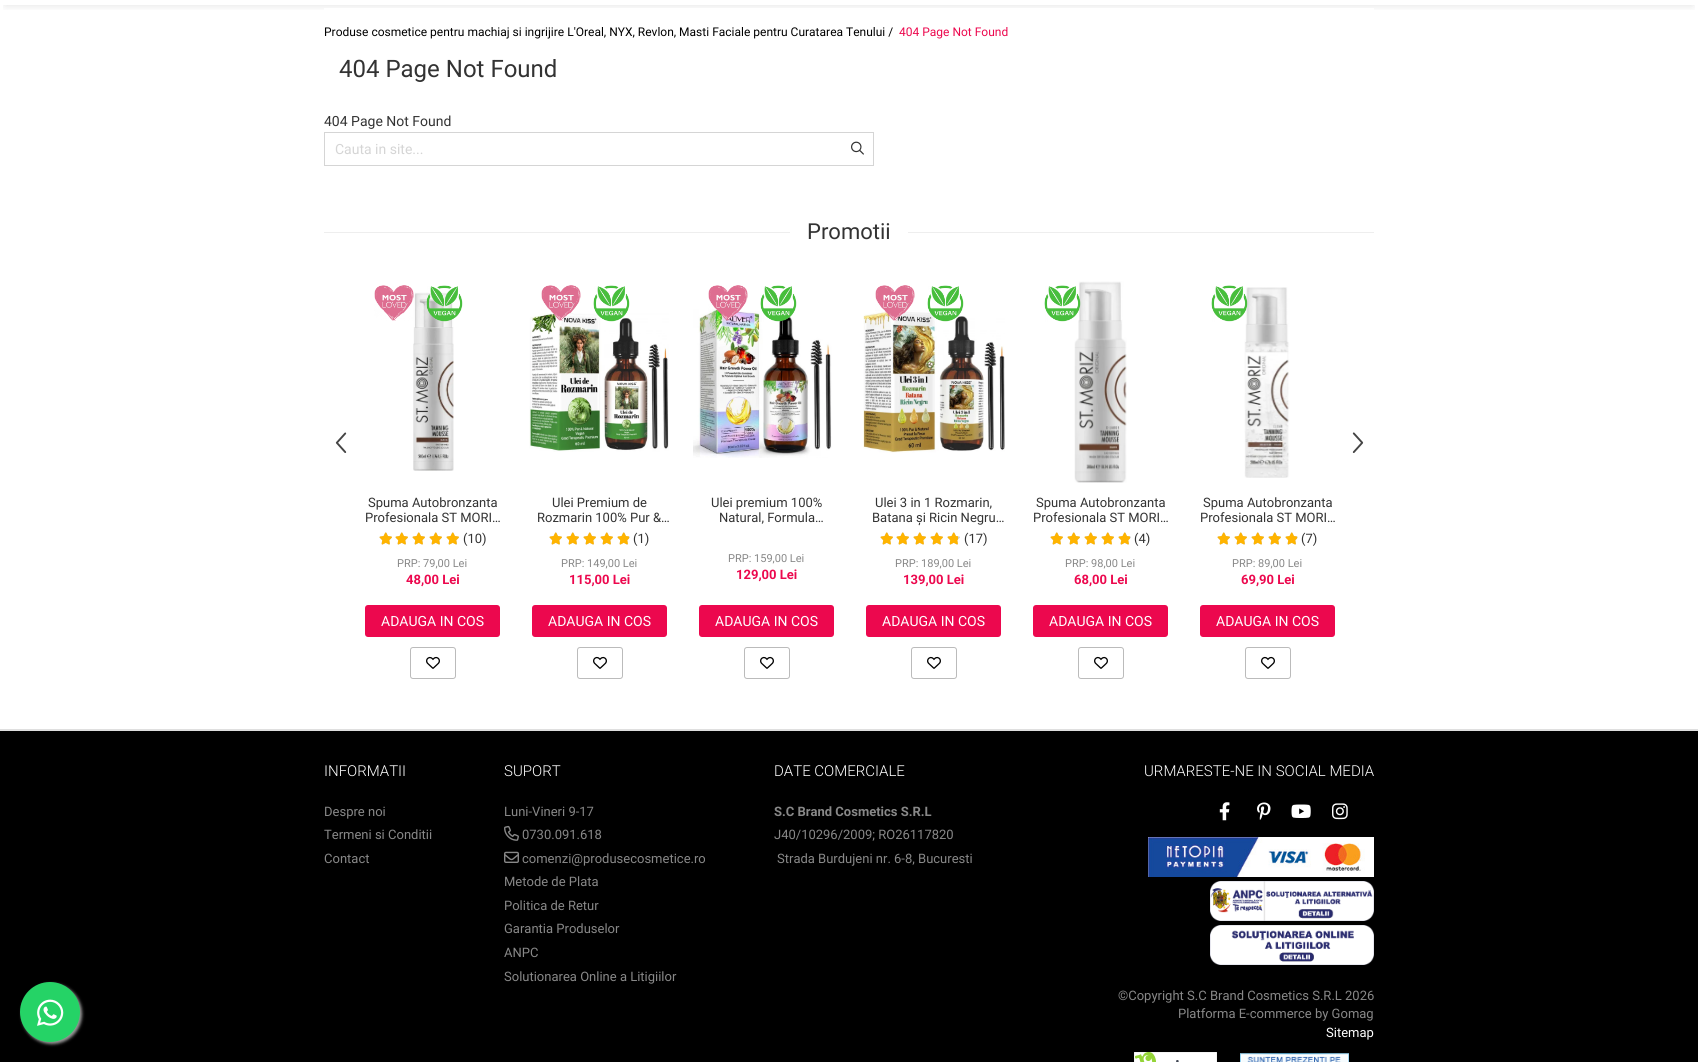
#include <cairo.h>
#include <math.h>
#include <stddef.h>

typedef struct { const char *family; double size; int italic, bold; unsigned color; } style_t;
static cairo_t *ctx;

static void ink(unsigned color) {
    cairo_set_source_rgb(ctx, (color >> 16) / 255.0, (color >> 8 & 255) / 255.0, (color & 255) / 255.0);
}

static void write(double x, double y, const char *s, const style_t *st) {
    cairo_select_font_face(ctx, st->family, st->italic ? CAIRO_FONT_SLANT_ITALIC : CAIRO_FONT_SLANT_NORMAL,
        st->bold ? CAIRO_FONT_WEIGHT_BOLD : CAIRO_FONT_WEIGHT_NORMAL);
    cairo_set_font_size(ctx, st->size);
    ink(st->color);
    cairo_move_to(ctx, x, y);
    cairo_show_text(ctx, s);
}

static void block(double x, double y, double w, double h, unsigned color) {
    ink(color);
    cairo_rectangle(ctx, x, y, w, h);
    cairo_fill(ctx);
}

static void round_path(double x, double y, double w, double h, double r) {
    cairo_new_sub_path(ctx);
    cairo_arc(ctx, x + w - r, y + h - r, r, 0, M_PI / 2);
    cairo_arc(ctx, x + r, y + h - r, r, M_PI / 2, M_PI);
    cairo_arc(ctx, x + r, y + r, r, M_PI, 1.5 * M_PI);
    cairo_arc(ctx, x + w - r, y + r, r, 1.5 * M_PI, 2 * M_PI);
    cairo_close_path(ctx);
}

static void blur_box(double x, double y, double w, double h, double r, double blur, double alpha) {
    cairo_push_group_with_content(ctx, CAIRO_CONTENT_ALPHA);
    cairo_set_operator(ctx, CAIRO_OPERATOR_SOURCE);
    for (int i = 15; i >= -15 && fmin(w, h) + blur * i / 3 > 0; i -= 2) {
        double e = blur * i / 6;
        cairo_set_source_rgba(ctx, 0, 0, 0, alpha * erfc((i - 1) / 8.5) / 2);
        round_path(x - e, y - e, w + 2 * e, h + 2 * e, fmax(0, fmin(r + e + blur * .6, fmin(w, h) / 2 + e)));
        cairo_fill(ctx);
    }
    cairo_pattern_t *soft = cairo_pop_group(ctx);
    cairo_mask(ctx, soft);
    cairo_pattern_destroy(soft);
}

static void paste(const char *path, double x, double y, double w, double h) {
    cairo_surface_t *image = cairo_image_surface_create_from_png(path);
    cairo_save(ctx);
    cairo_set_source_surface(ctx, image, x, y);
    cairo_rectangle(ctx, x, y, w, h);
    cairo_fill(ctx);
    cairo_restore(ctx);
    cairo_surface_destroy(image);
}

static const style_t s1 = {"Roboto", 12, 0, 0, 0x000000};
static const style_t s2 = {"Roboto", 12, 0, 0, 0xec084e};
static const style_t s3 = {"Roboto", 24, 0, 0, 0x333333};
static const style_t s4 = {"Roboto", 14, 0, 0, 0x333333};
static const style_t s5 = {"Roboto", 14, 0, 0, 0xd5d5d5};
static const style_t s6 = {"Roboto", 22, 0, 0, 0x333333};
static const style_t s7 = {"Roboto", 13, 0, 0, 0x333333};
static const style_t s8 = {"Roboto", 11, 0, 0, 0x888888};
static const style_t s9 = {"Roboto", 13, 0, 1, 0xec084e};
static const style_t s10 = {"Roboto", 14, 0, 0, 0xffffff};
static const style_t s11 = {"Roboto Light", 15, 0, 0, 0xffffff};
static const style_t s12 = {"Roboto", 13, 0, 0, 0x888888};
static const style_t s13 = {"Roboto", 13, 0, 1, 0x888888};
static const style_t s14 = {"Roboto", 13, 0, 0, 0xffffff};

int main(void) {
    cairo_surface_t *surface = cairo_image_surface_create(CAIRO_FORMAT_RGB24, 1698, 1062);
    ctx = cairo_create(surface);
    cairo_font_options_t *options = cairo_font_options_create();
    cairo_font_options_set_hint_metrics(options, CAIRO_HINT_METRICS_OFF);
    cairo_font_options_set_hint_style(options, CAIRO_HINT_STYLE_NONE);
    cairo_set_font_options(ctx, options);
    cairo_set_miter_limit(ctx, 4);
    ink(0xffffff);
    cairo_paint(ctx);
    block(0, 731, 1698, 331, 0x000000);
    ink(0x999999);
    blur_box(22, 984, 60, 60, 30, 1.5, 1);
    ink(0x25d366);
    cairo_arc(ctx, 50, 1012, 30, 0, 2 * M_PI);
    cairo_fill(ctx);
    paste("pic1.png", 37, 999, 27, 27);
    cairo_save(ctx);
    cairo_rectangle(ctx, 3, 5, 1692, 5);
    cairo_clip(ctx);
    ink(0x000000);
    blur_box(5, -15, 1688, 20, 0, 5, 0.12);
    cairo_restore(ctx);
    block(324, 8, 1050, 4, 0xffffff);
    write(324, 36, "Produse cosmetice pentru machiaj si ingrijire L'Oreal, NYX, Revlon, Masti Faciale pentru Curatarea Tenului /", &s1);
    write(899, 36, "404 Page Not Found", &s2);
    write(339, 77, "404 Page Not Found", &s3);
    write(324, 126, "404 Page Not Found", &s4);
    cairo_rectangle(ctx, 324.5, 132.5, 549, 33);
    ink(0xd5d5d5);
    cairo_set_line_width(ctx, 1);
    cairo_stroke(ctx);
    write(335, 154, "Cauta in site...", &s5);
    paste("pic2.png", 851, 141, 13, 14);
    block(324, 232, 1050, 1, 0xeeeeee);
    block(790, 232, 118, 1, 0xffffff);
    write(807, 239, "Promotii", &s6);
    paste("pic3.png", 335, 432, 12, 21);
    paste("pic4.png", 1352, 432, 12, 21);
    paste("pic5.png", 413, 292, 41, 179);
    paste("pic6.png", 374, 285, 40, 36);
    paste("pic7.png", 426, 285, 37, 37);
    write(368, 507, "Spuma Autobronzanta", &s7);
    write(365, 522, "Profesionala ST MORI…", &s7);
    paste("pic8.png", 379, 532, 13, 13);
    paste("pic9.png", 379, 532, 13, 13);
    paste("pic8.png", 395, 532, 13, 13);
    paste("pic9.png", 395, 532, 13, 13);
    paste("pic8.png", 412, 532, 13, 13);
    paste("pic9.png", 412, 532, 13, 13);
    paste("pic8.png", 429, 532, 13, 13);
    paste("pic9.png", 429, 532, 13, 13);
    paste("pic8.png", 446, 532, 13, 13);
    paste("pic9.png", 446, 532, 13, 13);
    write(463, 543, "(10)", &s7);
    write(397, 567, "PRP: 79,00 Lei", &s8);
    write(406, 584, "48,00 Lei", &s9);
    round_path(365, 605, 135, 32, 3);
    cairo_fill(ctx);
    write(381, 626, "ADAUGA IN COS", &s10);
    round_path(410.5, 647.5, 45, 31, 2.5);
    ink(0xbbbbbb);
    cairo_stroke(ctx);
    paste("pic10.png", 426, 656, 14, 13);
    paste("pic11.png", 529, 313, 140, 139);
    paste("pic12.png", 541, 285, 40, 36);
    paste("pic13.png", 593, 285, 37, 37);
    write(552, 507, "Ulei Premium de", &s7);
    write(537, 522, "Rozmarin 100% Pur &…", &s7);
    paste("pic8.png", 549, 532, 13, 13);
    paste("pic9.png", 549, 532, 13, 13);
    paste("pic8.png", 566, 532, 13, 13);
    paste("pic9.png", 566, 532, 13, 13);
    paste("pic8.png", 583, 532, 13, 13);
    paste("pic9.png", 583, 532, 13, 13);
    paste("pic8.png", 600, 532, 13, 13);
    paste("pic9.png", 600, 532, 13, 13);
    paste("pic8.png", 617, 532, 13, 13);
    paste("pic14.png", 617, 532, 12, 13);
    write(633, 543, "(1)", &s7);
    write(561, 567, "PRP: 149,00 Lei", &s8);
    write(569, 584, "115,00 Lei", &s9);
    round_path(532, 605, 135, 32, 3);
    cairo_fill(ctx);
    write(548, 626, "ADAUGA IN COS", &s10);
    round_path(577.5, 647.5, 45, 31, 2.5);
    ink(0xbbbbbb);
    cairo_stroke(ctx);
    paste("pic10.png", 593, 656, 14, 13);
    paste("pic15.png", 693, 309, 139, 149);
    paste("pic16.png", 708, 285, 40, 36);
    paste("pic17.png", 760, 285, 37, 37);
    write(711, 507, "Ulei premium 100%", &s7);
    write(719, 522, "Natural, Formula…", &s7);
    write(728, 562, "PRP: 159,00 Lei", &s8);
    write(736, 579, "129,00 Lei", &s9);
    round_path(699, 605, 135, 32, 3);
    cairo_fill(ctx);
    write(715, 626, "ADAUGA IN COS", &s10);
    round_path(744.5, 647.5, 45, 31, 2.5);
    ink(0xbbbbbb);
    cairo_stroke(ctx);
    paste("pic10.png", 760, 656, 14, 13);
    paste("pic18.png", 863, 310, 142, 143);
    paste("pic19.png", 875, 285, 40, 36);
    paste("pic20.png", 927, 285, 37, 37);
    write(875, 507, "Ulei 3 in 1 Rozmarin,", &s7);
    write(872, 522, "Batana și Ricin Negru…", &s7);
    paste("pic8.png", 880, 532, 13, 13);
    paste("pic9.png", 880, 532, 13, 13);
    paste("pic8.png", 896, 532, 13, 13);
    paste("pic9.png", 896, 532, 13, 13);
    paste("pic8.png", 913, 532, 13, 13);
    paste("pic9.png", 913, 532, 13, 13);
    paste("pic8.png", 930, 532, 13, 13);
    paste("pic9.png", 930, 532, 13, 13);
    paste("pic8.png", 947, 532, 13, 13);
    paste("pic21.png", 947, 532, 11, 13);
    write(964, 543, "(17)", &s7);
    write(895, 567, "PRP: 189,00 Lei", &s8);
    write(903, 584, "139,00 Lei", &s9);
    round_path(866, 605, 135, 32, 3);
    cairo_fill(ctx);
    write(882, 626, "ADAUGA IN COS", &s10);
    round_path(911.5, 647.5, 45, 31, 2.5);
    ink(0xbbbbbb);
    cairo_stroke(ctx);
    paste("pic10.png", 927, 656, 14, 13);
    paste("pic22.png", 1074, 281, 53, 202);
    paste("pic23.png", 1044, 285, 37, 37);
    write(1036, 507, "Spuma Autobronzanta", &s7);
    write(1033, 522, "Profesionala ST MORI…", &s7);
    paste("pic8.png", 1050, 532, 13, 13);
    paste("pic9.png", 1050, 532, 13, 13);
    paste("pic8.png", 1067, 532, 13, 13);
    paste("pic9.png", 1067, 532, 13, 13);
    paste("pic8.png", 1084, 532, 13, 13);
    paste("pic9.png", 1084, 532, 13, 13);
    paste("pic8.png", 1101, 532, 13, 13);
    paste("pic9.png", 1101, 532, 13, 13);
    paste("pic8.png", 1118, 532, 13, 13);
    paste("pic14.png", 1118, 532, 12, 13);
    write(1134, 543, "(4)", &s7);
    write(1065, 567, "PRP: 98,00 Lei", &s8);
    write(1074, 584, "68,00 Lei", &s9);
    round_path(1033, 605, 135, 32, 3);
    cairo_fill(ctx);
    write(1049, 626, "ADAUGA IN COS", &s10);
    round_path(1078.5, 647.5, 45, 31, 2.5);
    ink(0xbbbbbb);
    cairo_stroke(ctx);
    paste("pic10.png", 1094, 656, 14, 13);
    paste("pic24.png", 1244, 287, 46, 191);
    paste("pic25.png", 1211, 285, 37, 37);
    write(1203, 507, "Spuma Autobronzanta", &s7);
    write(1200, 522, "Profesionala ST MORI…", &s7);
    paste("pic8.png", 1217, 532, 13, 13);
    paste("pic9.png", 1217, 532, 13, 13);
    paste("pic8.png", 1234, 532, 13, 13);
    paste("pic9.png", 1234, 532, 13, 13);
    paste("pic8.png", 1251, 532, 13, 13);
    paste("pic9.png", 1251, 532, 13, 13);
    paste("pic8.png", 1268, 532, 13, 13);
    paste("pic9.png", 1268, 532, 13, 13);
    paste("pic8.png", 1285, 532, 13, 13);
    paste("pic14.png", 1285, 532, 12, 13);
    write(1301, 543, "(7)", &s7);
    write(1232, 567, "PRP: 89,00 Lei", &s8);
    write(1241, 584, "69,90 Lei", &s9);
    round_path(1200, 605, 135, 32, 3);
    cairo_fill(ctx);
    write(1216, 626, "ADAUGA IN COS", &s10);
    round_path(1245.5, 647.5, 45, 31, 2.5);
    ink(0xbbbbbb);
    cairo_stroke(ctx);
    paste("pic10.png", 1261, 656, 14, 13);
    block(0, 729, 1698, 2, 0xdfdfdf);
    write(324, 776, "INFORMATII", &s11);
    write(324, 816, "Despre noi", &s12);
    write(324, 839, "Termeni si Conditii", &s12);
    write(324, 863, "Contact", &s12);
    write(504, 776, "SUPORT", &s11);
    write(504, 816, "Luni-Vineri 9-17", &s12);
    paste("pic26.png", 504, 825, 15, 16);
    write(522, 839, "0730.091.618", &s12);
    paste("pic27.png", 504, 851, 15, 12);
    write(522, 863, "comenzi@produsecosmetice.ro", &s12);
    write(504, 886, "Metode de Plata", &s12);
    write(504, 910, "Politica de Retur", &s12);
    write(504, 933, "Garantia Produselor", &s12);
    write(504, 957, "ANPC", &s12);
    write(504, 981, "Solutionarea Online a Litigiilor", &s12);
    write(774, 776, "DATE COMERCIALE", &s11);
    write(774, 816, "S.C Brand Cosmetics S.R.L", &s13);
    write(774, 839, "J40/10296/2009; RO26117820", &s12);
    write(777, 863, "Strada Burdujeni nr. 6-8, Bucuresti", &s12);
    write(1144, 776, "URMARESTE-NE IN SOCIAL MEDIA", &s11);
    paste("pic28.png", 1219, 802, 11, 19);
    paste("pic29.png", 1257, 802, 14, 18);
    paste("pic30.png", 1291, 804, 20, 14);
    paste("pic31.png", 1332, 803, 16, 17);
    paste("pic32.png", 1148, 837, 226, 40);
    paste("pic33.png", 1210, 881, 164, 40);
    paste("pic34.png", 1210, 925, 164, 40);
    write(1118, 1000, "©Copyright S.C Brand Cosmetics S.R.L 2026", &s12);
    write(1178, 1018, "Platforma E-commerce by Gomag", &s12);
    write(1326, 1037, "Sitemap", &s14);
    paste("pic35.png", 1134, 1052, 83, 10);
    paste("pic36.png", 1240, 1053, 109, 9);
    cairo_surface_write_to_png(surface, "screenshot.png");
    cairo_font_options_destroy(options);
    cairo_destroy(ctx);
    cairo_surface_destroy(surface);
    return 0;
}
